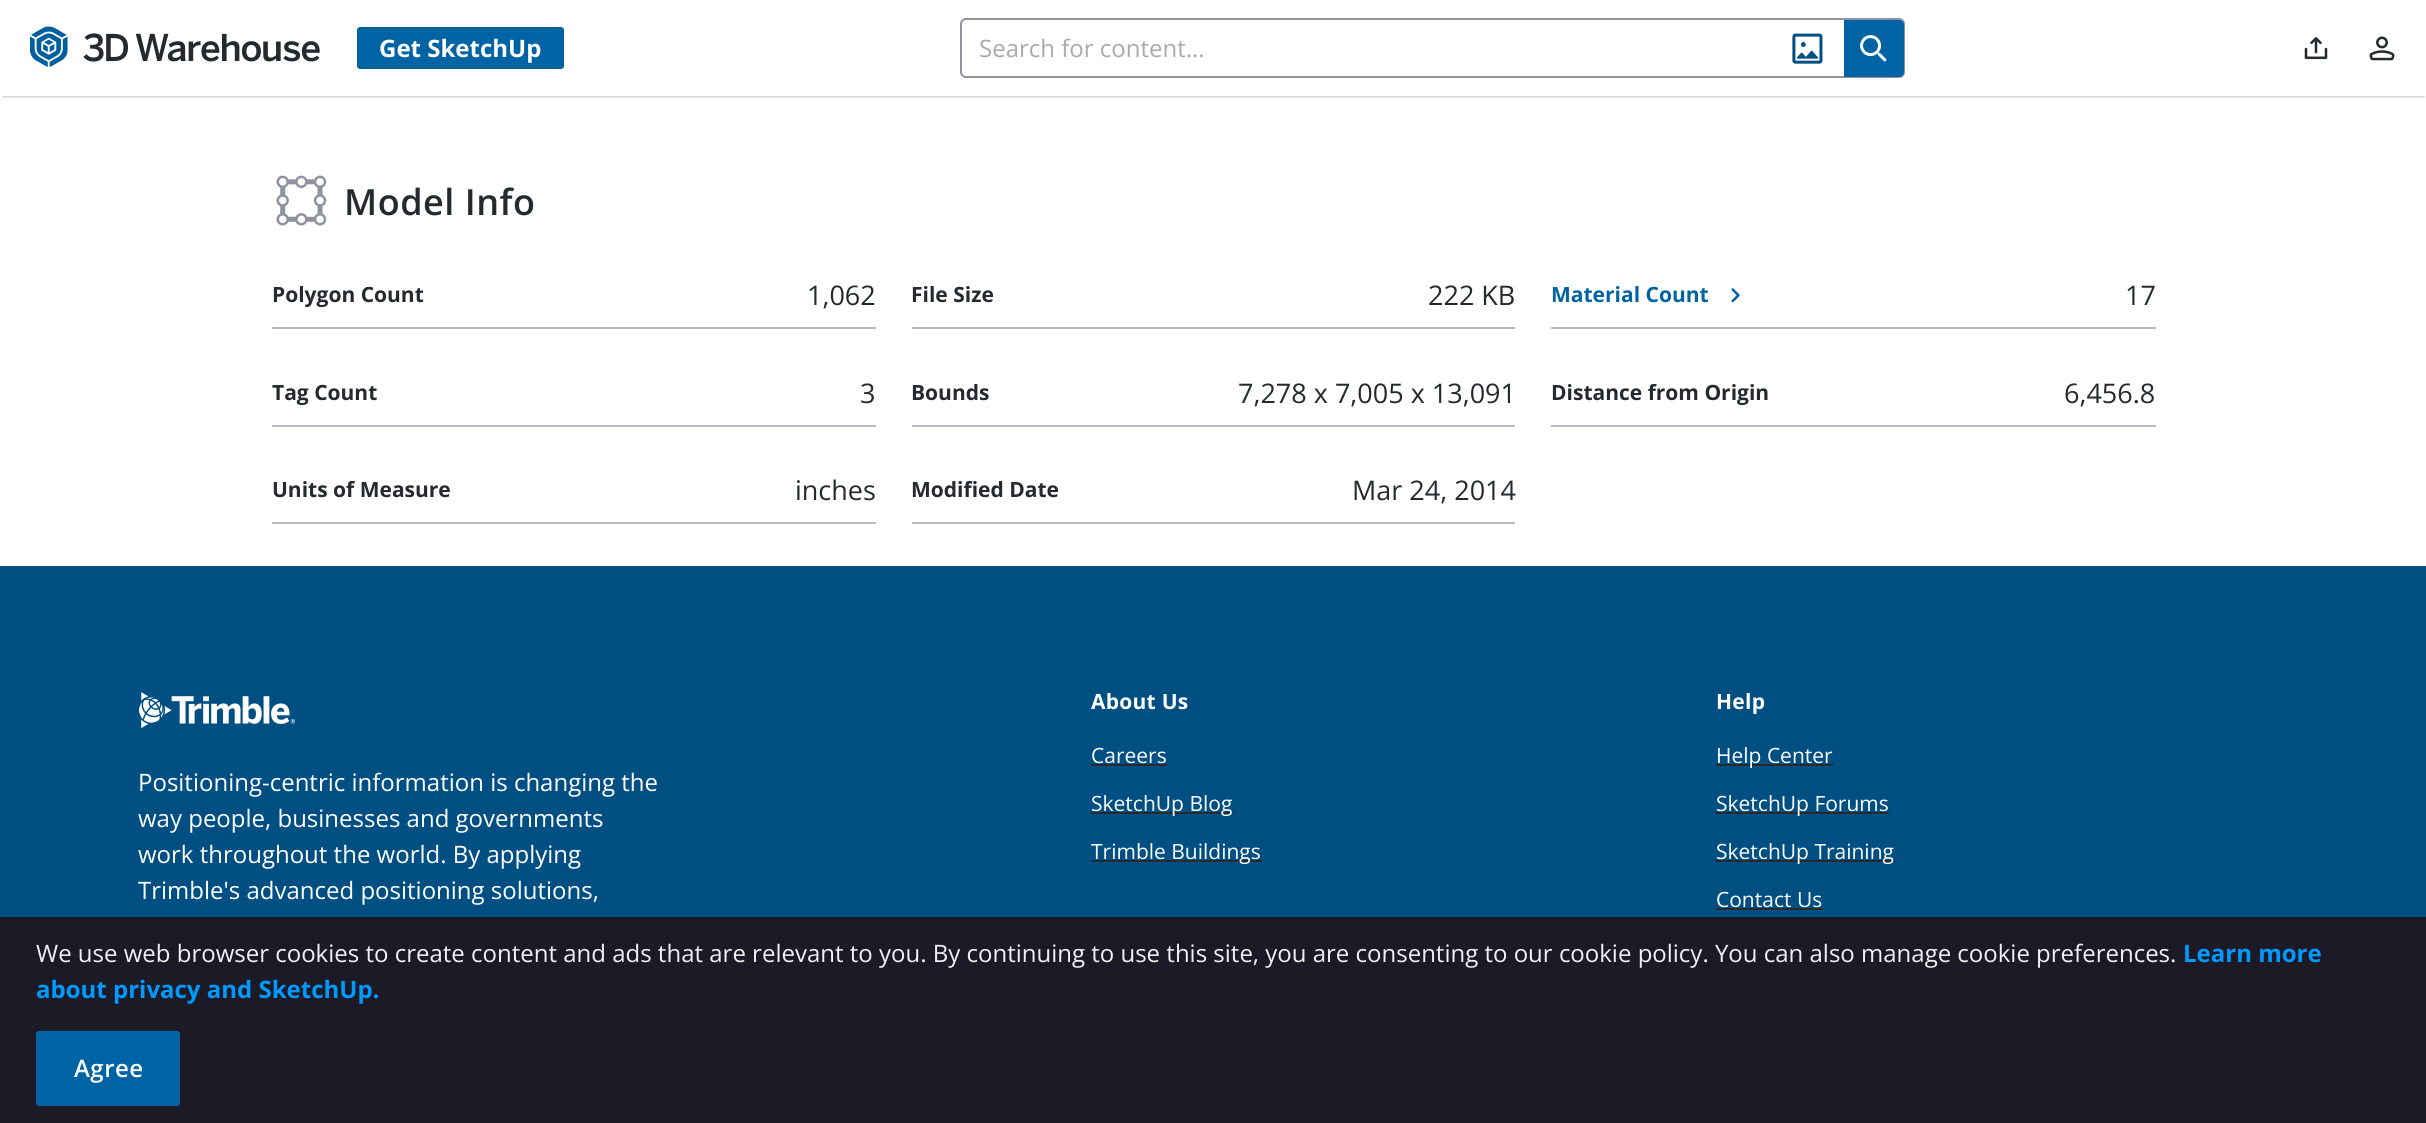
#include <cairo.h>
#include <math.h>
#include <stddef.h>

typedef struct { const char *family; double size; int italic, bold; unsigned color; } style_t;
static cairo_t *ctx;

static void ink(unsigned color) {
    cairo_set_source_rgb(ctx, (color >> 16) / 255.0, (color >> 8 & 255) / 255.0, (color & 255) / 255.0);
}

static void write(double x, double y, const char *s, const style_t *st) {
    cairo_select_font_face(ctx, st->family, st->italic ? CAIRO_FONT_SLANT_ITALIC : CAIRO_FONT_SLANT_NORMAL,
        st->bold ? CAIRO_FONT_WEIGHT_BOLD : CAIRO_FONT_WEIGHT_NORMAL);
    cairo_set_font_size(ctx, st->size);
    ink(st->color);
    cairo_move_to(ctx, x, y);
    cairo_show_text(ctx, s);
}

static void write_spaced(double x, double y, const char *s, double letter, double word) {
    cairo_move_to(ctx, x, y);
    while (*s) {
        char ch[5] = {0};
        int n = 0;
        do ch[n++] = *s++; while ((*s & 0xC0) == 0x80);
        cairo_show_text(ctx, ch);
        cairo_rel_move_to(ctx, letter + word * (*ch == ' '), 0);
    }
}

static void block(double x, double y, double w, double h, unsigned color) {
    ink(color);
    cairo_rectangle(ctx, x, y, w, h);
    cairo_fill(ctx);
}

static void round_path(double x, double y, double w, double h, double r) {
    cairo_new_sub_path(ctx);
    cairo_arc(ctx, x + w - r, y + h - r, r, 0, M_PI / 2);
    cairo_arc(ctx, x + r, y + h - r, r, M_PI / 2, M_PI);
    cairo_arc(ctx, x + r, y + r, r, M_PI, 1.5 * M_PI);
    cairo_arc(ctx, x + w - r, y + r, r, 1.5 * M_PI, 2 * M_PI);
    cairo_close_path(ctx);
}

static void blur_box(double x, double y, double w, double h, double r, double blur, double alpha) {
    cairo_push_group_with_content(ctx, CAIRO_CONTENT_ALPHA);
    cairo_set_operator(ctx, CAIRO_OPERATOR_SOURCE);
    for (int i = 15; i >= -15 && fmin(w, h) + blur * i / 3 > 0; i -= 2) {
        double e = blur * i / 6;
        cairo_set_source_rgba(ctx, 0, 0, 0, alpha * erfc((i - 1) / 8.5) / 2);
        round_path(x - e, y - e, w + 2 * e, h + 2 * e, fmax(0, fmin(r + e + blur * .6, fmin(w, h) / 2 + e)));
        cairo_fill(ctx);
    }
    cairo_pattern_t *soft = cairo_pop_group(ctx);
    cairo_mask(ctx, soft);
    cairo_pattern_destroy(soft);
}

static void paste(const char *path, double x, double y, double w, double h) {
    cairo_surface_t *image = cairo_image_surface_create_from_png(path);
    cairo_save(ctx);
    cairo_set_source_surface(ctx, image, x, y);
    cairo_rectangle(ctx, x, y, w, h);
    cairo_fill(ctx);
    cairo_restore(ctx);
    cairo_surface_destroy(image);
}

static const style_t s1 = {"Open Sans", 24, 0, 1, 0xffffff};
static const style_t s2 = {"Open Sans", 24, 0, 0, 0xa8aaab};
static const style_t s3 = {"Open Sans", 21, 0, 1, 0x252a2e};
static const style_t s4 = {"Open Sans", 27, 0, 0, 0x252a2e};
static const style_t s5 = {"Open Sans", 21, 0, 1, 0x0063a3};
static const style_t s6 = {"Open Sans", 24, 0, 0, 0xffffff};
static const style_t s7 = {"Open Sans", 21, 0, 0, 0xffffff};
static const style_t s8 = {"Open Sans", 24, 0, 0, 0xf1f1f6};
static const style_t s9 = {"Open Sans", 24, 0, 1, 0x0099fe};

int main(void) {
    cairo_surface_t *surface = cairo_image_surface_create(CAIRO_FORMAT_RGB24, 2426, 1123);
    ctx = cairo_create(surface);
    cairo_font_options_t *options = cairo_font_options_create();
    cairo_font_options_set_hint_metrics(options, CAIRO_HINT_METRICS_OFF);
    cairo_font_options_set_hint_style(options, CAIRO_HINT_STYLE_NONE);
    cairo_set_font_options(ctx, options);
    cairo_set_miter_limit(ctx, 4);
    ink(0xffffff);
    cairo_paint(ctx);
    ink(0x90939f);
    blur_box(3, 6, 2421, 90, 0, 1.5, 1);
    block(0, 3, 2426, 93, 0xffffff);
    paste("pic1.png", 30, 26, 38, 42);
    paste("pic2.png", 83, 33, 237, 29);
    ink(0x0063a3);
    round_path(357, 27, 207, 42, 3);
    cairo_fill(ctx);
    write(379, 57, "Get SketchUp", &s1);
    round_path(961, 19, 943, 58, 5);
    ink(0x90939f);
    cairo_stroke(ctx);
    write(979, 57, "Search for content...", &s2);
    paste("pic3.png", 1792, 33, 31, 31);
    ink(0x0063a3);
    cairo_new_path(ctx);
    cairo_move_to(ctx, 1844, 20);
    cairo_line_to(ctx, 1899, 20);
    cairo_curve_to(ctx, 1902, 20, 1904, 22, 1904, 25);
    cairo_line_to(ctx, 1904, 72);
    cairo_curve_to(ctx, 1904, 75, 1902, 77, 1899, 77);
    cairo_line_to(ctx, 1844, 77);
    cairo_close_path(ctx);
    cairo_fill(ctx);
    paste("pic4.png", 1860, 35, 27, 27);
    paste("pic5.png", 2304, 37, 24, 23);
    paste("pic6.png", 2369, 36, 26, 25);
    paste("pic7.png", 276, 175, 51, 51);
    cairo_select_font_face(ctx, "Open Sans SemiBold", CAIRO_FONT_SLANT_NORMAL, CAIRO_FONT_WEIGHT_NORMAL);
    cairo_set_font_size(ctx, 36);
    ink(0x252a2e);
    write_spaced(344, 215, "Model Info", 0.5, 0);
    block(272, 327, 604, 2, 0xb7b9c3);
    write(272, 302, "Polygon Count", &s3);
    write(807, 305, "1,062", &s4);
    block(912, 327, 603, 2, 0xb7b9c3);
    write(911, 302, "File Size", &s3);
    write(1428, 305, "222 KB", &s4);
    block(1551, 327, 605, 2, 0xb7b9c3);
    write(1551, 302, "Material Count", &s5);
    paste("pic8.png", 1731, 288, 9, 15);
    write(2125, 305, "17", &s4);
    block(272, 425, 604, 2, 0xb7b9c3);
    write(272, 400, "Tag Count", &s3);
    write(860, 403, "3", &s4);
    block(912, 425, 603, 2, 0xb7b9c3);
    write(911, 400, "Bounds", &s3);
    write(1238, 403, "7,278 x 7,005 x 13,091", &s4);
    block(1551, 425, 605, 2, 0xb7b9c3);
    write(1551, 400, "Distance from Origin", &s3);
    write(2064, 403, "6,456.8", &s4);
    block(272, 522, 604, 2, 0xb7b9c3);
    write(272, 497, "Units of Measure", &s3);
    write(795, 500, "inches", &s4);
    block(912, 522, 603, 2, 0xb7b9c3);
    write(911, 497, "Modified Date", &s3);
    write(1352, 500, "Mar 24, 2014", &s4);
    block(0, 566, 2426, 351, 0x004f83);
    paste("pic9.png", 139, 692, 157, 36);
    write(138, 791, "Positioning-centric information is changing the", &s6);
    write(138, 827, "way people, businesses and governments", &s6);
    write(138, 863, "work throughout the world. By applying", &s6);
    write(138, 899, "Trimble's advanced positioning solutions,", &s6);
    cairo_select_font_face(ctx, "Open Sans", CAIRO_FONT_SLANT_NORMAL, CAIRO_FONT_WEIGHT_BOLD);
    cairo_set_font_size(ctx, 21);
    write_spaced(1091, 709, "About Us", 0.25, 0);
    write(1091, 763, "Careers", &s7);
    block(1091, 764, 76, 2, 0x252a2e);
    block(1091, 812, 142, 2, 0x252a2e);
    write(1091, 811, "SketchUp Blog", &s7);
    block(1091, 860, 171, 2, 0x252a2e);
    write(1091, 859, "Trimble Buildings", &s7);
    cairo_select_font_face(ctx, "Open Sans", CAIRO_FONT_SLANT_NORMAL, CAIRO_FONT_WEIGHT_BOLD);
    write_spaced(1716, 709, "Help", 0.25, 0);
    block(1716, 764, 117, 2, 0x252a2e);
    write(1716, 763, "Help Center", &s7);
    block(1716, 812, 173, 2, 0x252a2e);
    write(1716, 811, "SketchUp Forums", &s7);
    block(1716, 860, 179, 2, 0x252a2e);
    write(1716, 859, "SketchUp Training", &s7);
    write(1716, 907, "Contact Us", &s7);
    block(1716, 908, 107, 2, 0x252a2e);
    block(0, 917, 2426, 206, 0x1b1a26);
    write(36, 962, "We use web browser cookies to create content and ads that are relevant to you. By continuing to use this site, you are consenting to our cookie policy. You can also manage cookie preferences.", &s8);
    write(2183, 962, "Learn more", &s9);
    write(36, 998, "about privacy and SketchUp.", &s9);
    ink(0x0063a3);
    round_path(37, 1032, 142, 73, 2);
    cairo_fill_preserve(ctx);
    cairo_stroke(ctx);
    cairo_select_font_face(ctx, "Open Sans SemiBold", CAIRO_FONT_SLANT_NORMAL, CAIRO_FONT_WEIGHT_NORMAL);
    ink(0xffffff);
    write_spaced(74, 1077, "Agree", 0.5, 0);
    cairo_surface_write_to_png(surface, "screenshot.png");
    cairo_font_options_destroy(options);
    cairo_destroy(ctx);
    cairo_surface_destroy(surface);
    return 0;
}
